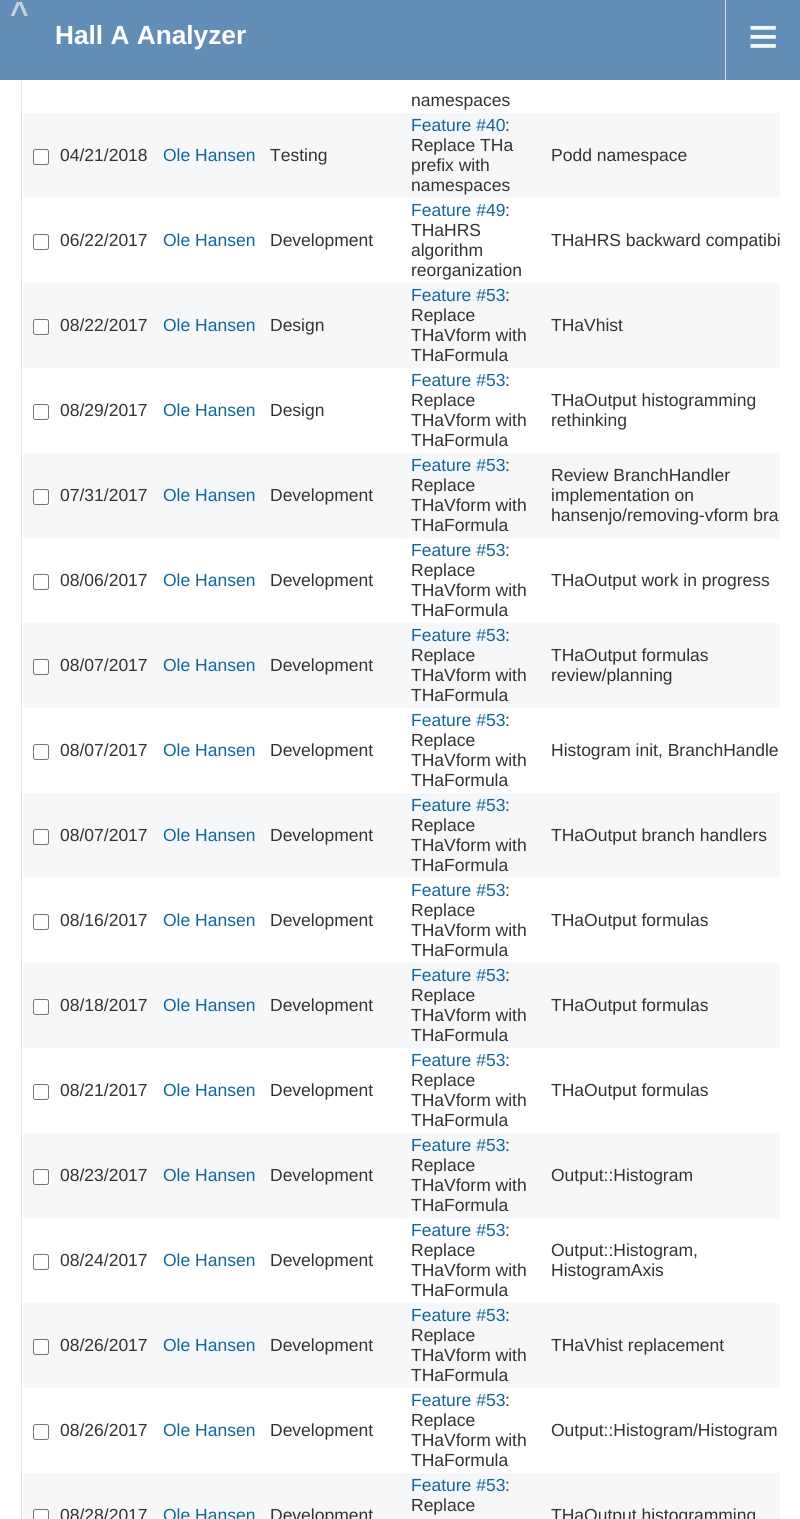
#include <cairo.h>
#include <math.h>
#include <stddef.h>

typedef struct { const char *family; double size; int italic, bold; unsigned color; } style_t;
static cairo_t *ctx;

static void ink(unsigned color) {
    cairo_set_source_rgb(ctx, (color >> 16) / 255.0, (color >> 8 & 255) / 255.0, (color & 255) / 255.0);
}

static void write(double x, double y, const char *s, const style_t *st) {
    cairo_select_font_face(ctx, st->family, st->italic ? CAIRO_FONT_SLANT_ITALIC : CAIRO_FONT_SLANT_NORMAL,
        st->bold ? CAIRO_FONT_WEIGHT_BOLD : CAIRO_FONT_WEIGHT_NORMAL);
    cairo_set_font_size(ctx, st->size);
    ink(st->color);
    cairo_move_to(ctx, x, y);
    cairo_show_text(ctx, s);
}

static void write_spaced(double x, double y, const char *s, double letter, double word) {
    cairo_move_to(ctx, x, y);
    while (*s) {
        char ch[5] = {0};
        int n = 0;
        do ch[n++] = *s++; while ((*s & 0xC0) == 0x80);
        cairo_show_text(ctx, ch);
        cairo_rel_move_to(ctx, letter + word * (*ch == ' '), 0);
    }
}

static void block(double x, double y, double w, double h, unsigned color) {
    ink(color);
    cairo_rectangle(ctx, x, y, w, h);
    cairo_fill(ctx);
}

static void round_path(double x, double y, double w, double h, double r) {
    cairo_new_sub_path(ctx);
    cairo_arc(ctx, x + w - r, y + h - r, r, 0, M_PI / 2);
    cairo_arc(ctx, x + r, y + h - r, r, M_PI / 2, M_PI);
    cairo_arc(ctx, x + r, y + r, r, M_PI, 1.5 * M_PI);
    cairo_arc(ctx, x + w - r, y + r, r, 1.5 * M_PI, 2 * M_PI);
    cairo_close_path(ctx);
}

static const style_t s1 = {"Liberation Sans", 26.25, 0, 1, 0xffffff};
static const style_t s2 = {"Liberation Sans", 52, 0, 0, 0xf8f8f8};
static const style_t s3 = {"Liberation Sans", 17.5, 0, 0, 0x333333};
static const style_t s4 = {"Liberation Sans", 17.5, 0, 0, 0x116699};

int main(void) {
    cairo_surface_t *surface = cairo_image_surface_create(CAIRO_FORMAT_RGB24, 800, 1519);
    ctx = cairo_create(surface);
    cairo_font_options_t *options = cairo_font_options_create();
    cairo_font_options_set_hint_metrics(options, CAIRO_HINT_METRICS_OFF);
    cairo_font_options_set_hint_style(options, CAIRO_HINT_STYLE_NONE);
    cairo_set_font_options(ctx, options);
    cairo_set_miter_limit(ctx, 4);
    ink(0xffffff);
    cairo_paint(ctx);
    cairo_rectangle(ctx, 21.5, -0.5, 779, 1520);
    ink(0xe4e4e4);
    cairo_set_line_width(ctx, 1);
    cairo_stroke(ctx);
    block(0, 0, 800, 80, 0x628db6);
    cairo_select_font_face(ctx, "Liberation Sans", CAIRO_FONT_SLANT_NORMAL, CAIRO_FONT_WEIGHT_BOLD);
    cairo_set_font_size(ctx, 32);
    ink(0xc0d1e2);
    write_spaced(10, 24, "^", 5, 0);
    write(55, 44, "Hall A Analyzer", &s1);
    block(725, 0, 1, 80, 0xdddddd);
    write(748, 54, "≡", &s2);
    write(411, 106, "namespaces", &s3);
    block(23, 113, 757, 85, 0xf6f7f8);
    ink(0xffffff);
    round_path(33.5, 149.5, 15, 15, 2);
    cairo_fill_preserve(ctx);
    ink(0x767676);
    cairo_stroke(ctx);
    write(60, 161, "04/21/2018", &s3);
    write(163, 161, "Ole Hansen", &s4);
    write(270, 161, "Testing", &s3);
    write(411, 131, "Feature #40", &s4);
    write(505, 131, ":", &s3);
    write(411, 151, "Replace THa", &s3);
    write(411, 171, "prefix with", &s3);
    write(411, 191, "namespaces", &s3);
    write(551, 161, "Podd namespace", &s3);
    round_path(33.5, 234.5, 15, 15, 2);
    ink(0x767676);
    cairo_stroke(ctx);
    write(60, 246, "06/22/2017", &s3);
    write(163, 246, "Ole Hansen", &s4);
    write(270, 246, "Development", &s3);
    write(411, 216, "Feature #49", &s4);
    write(505, 216, ":", &s3);
    write(411, 236, "THaHRS", &s3);
    write(411, 256, "algorithm", &s3);
    write(411, 276, "reorganization", &s3);
    write(551, 246, "THaHRS backward compatibi", &s3);
    block(23, 283, 757, 85, 0xf6f7f8);
    ink(0xffffff);
    round_path(33.5, 319.5, 15, 15, 2);
    cairo_fill_preserve(ctx);
    ink(0x767676);
    cairo_stroke(ctx);
    write(60, 331, "08/22/2017", &s3);
    write(163, 331, "Ole Hansen", &s4);
    write(270, 331, "Design", &s3);
    write(411, 301, "Feature #53", &s4);
    write(505, 301, ":", &s3);
    write(411, 321, "Replace", &s3);
    write(411, 341, "THaVform with", &s3);
    write(411, 361, "THaFormula", &s3);
    write(551, 331, "THaVhist", &s3);
    round_path(33.5, 404.5, 15, 15, 2);
    ink(0x767676);
    cairo_stroke(ctx);
    write(60, 416, "08/29/2017", &s3);
    write(163, 416, "Ole Hansen", &s4);
    write(270, 416, "Design", &s3);
    write(411, 386, "Feature #53", &s4);
    write(505, 386, ":", &s3);
    write(411, 406, "Replace", &s3);
    write(411, 426, "THaVform with", &s3);
    write(411, 446, "THaFormula", &s3);
    write(551, 406, "THaOutput histogramming", &s3);
    write(551, 426, "rethinking", &s3);
    block(23, 453, 757, 85, 0xf6f7f8);
    ink(0xffffff);
    round_path(33.5, 489.5, 15, 15, 2);
    cairo_fill_preserve(ctx);
    ink(0x767676);
    cairo_stroke(ctx);
    write(60, 501, "07/31/2017", &s3);
    write(163, 501, "Ole Hansen", &s4);
    write(270, 501, "Development", &s3);
    write(411, 471, "Feature #53", &s4);
    write(505, 471, ":", &s3);
    write(411, 491, "Replace", &s3);
    write(411, 511, "THaVform with", &s3);
    write(411, 531, "THaFormula", &s3);
    write(551, 481, "Review BranchHandler", &s3);
    write(551, 501, "implementation on", &s3);
    write(551, 521, "hansenjo/removing-vform bra", &s3);
    round_path(33.5, 574.5, 15, 15, 2);
    ink(0x767676);
    cairo_stroke(ctx);
    write(60, 586, "08/06/2017", &s3);
    write(163, 586, "Ole Hansen", &s4);
    write(270, 586, "Development", &s3);
    write(411, 556, "Feature #53", &s4);
    write(505, 556, ":", &s3);
    write(411, 576, "Replace", &s3);
    write(411, 596, "THaVform with", &s3);
    write(411, 616, "THaFormula", &s3);
    write(551, 586, "THaOutput work in progress", &s3);
    block(23, 623, 757, 85, 0xf6f7f8);
    ink(0xffffff);
    round_path(33.5, 659.5, 15, 15, 2);
    cairo_fill_preserve(ctx);
    ink(0x767676);
    cairo_stroke(ctx);
    write(60, 671, "08/07/2017", &s3);
    write(163, 671, "Ole Hansen", &s4);
    write(270, 671, "Development", &s3);
    write(411, 641, "Feature #53", &s4);
    write(505, 641, ":", &s3);
    write(411, 661, "Replace", &s3);
    write(411, 681, "THaVform with", &s3);
    write(411, 701, "THaFormula", &s3);
    write(551, 661, "THaOutput formulas", &s3);
    write(551, 681, "review/planning", &s3);
    round_path(33.5, 744.5, 15, 15, 2);
    ink(0x767676);
    cairo_stroke(ctx);
    write(60, 756, "08/07/2017", &s3);
    write(163, 756, "Ole Hansen", &s4);
    write(270, 756, "Development", &s3);
    write(411, 726, "Feature #53", &s4);
    write(505, 726, ":", &s3);
    write(411, 746, "Replace", &s3);
    write(411, 766, "THaVform with", &s3);
    write(411, 786, "THaFormula", &s3);
    write(551, 756, "Histogram init, BranchHandle", &s3);
    block(23, 793, 757, 85, 0xf6f7f8);
    ink(0xffffff);
    round_path(33.5, 829.5, 15, 15, 2);
    cairo_fill_preserve(ctx);
    ink(0x767676);
    cairo_stroke(ctx);
    write(60, 841, "08/07/2017", &s3);
    write(163, 841, "Ole Hansen", &s4);
    write(270, 841, "Development", &s3);
    write(411, 811, "Feature #53", &s4);
    write(505, 811, ":", &s3);
    write(411, 831, "Replace", &s3);
    write(411, 851, "THaVform with", &s3);
    write(411, 871, "THaFormula", &s3);
    write(551, 841, "THaOutput branch handlers", &s3);
    round_path(33.5, 914.5, 15, 15, 2);
    ink(0x767676);
    cairo_stroke(ctx);
    write(60, 926, "08/16/2017", &s3);
    write(163, 926, "Ole Hansen", &s4);
    write(270, 926, "Development", &s3);
    write(411, 896, "Feature #53", &s4);
    write(505, 896, ":", &s3);
    write(411, 916, "Replace", &s3);
    write(411, 936, "THaVform with", &s3);
    write(411, 956, "THaFormula", &s3);
    write(551, 926, "THaOutput formulas", &s3);
    block(23, 963, 757, 85, 0xf6f7f8);
    ink(0xffffff);
    round_path(33.5, 999.5, 15, 15, 2);
    cairo_fill_preserve(ctx);
    ink(0x767676);
    cairo_stroke(ctx);
    write(60, 1011, "08/18/2017", &s3);
    write(163, 1011, "Ole Hansen", &s4);
    write(270, 1011, "Development", &s3);
    write(411, 981, "Feature #53", &s4);
    write(505, 981, ":", &s3);
    write(411, 1001, "Replace", &s3);
    write(411, 1021, "THaVform with", &s3);
    write(411, 1041, "THaFormula", &s3);
    write(551, 1011, "THaOutput formulas", &s3);
    round_path(33.5, 1084.5, 15, 15, 2);
    ink(0x767676);
    cairo_stroke(ctx);
    write(60, 1096, "08/21/2017", &s3);
    write(163, 1096, "Ole Hansen", &s4);
    write(270, 1096, "Development", &s3);
    write(411, 1066, "Feature #53", &s4);
    write(505, 1066, ":", &s3);
    write(411, 1086, "Replace", &s3);
    write(411, 1106, "THaVform with", &s3);
    write(411, 1126, "THaFormula", &s3);
    write(551, 1096, "THaOutput formulas", &s3);
    block(23, 1133, 757, 85, 0xf6f7f8);
    ink(0xffffff);
    round_path(33.5, 1169.5, 15, 15, 2);
    cairo_fill_preserve(ctx);
    ink(0x767676);
    cairo_stroke(ctx);
    write(60, 1181, "08/23/2017", &s3);
    write(163, 1181, "Ole Hansen", &s4);
    write(270, 1181, "Development", &s3);
    write(411, 1151, "Feature #53", &s4);
    write(505, 1151, ":", &s3);
    write(411, 1171, "Replace", &s3);
    write(411, 1191, "THaVform with", &s3);
    write(411, 1211, "THaFormula", &s3);
    write(551, 1181, "Output::Histogram", &s3);
    round_path(33.5, 1254.5, 15, 15, 2);
    ink(0x767676);
    cairo_stroke(ctx);
    write(60, 1266, "08/24/2017", &s3);
    write(163, 1266, "Ole Hansen", &s4);
    write(270, 1266, "Development", &s3);
    write(411, 1236, "Feature #53", &s4);
    write(505, 1236, ":", &s3);
    write(411, 1256, "Replace", &s3);
    write(411, 1276, "THaVform with", &s3);
    write(411, 1296, "THaFormula", &s3);
    write(551, 1256, "Output::Histogram,", &s3);
    write(551, 1276, "HistogramAxis", &s3);
    block(23, 1303, 757, 85, 0xf6f7f8);
    ink(0xffffff);
    round_path(33.5, 1339.5, 15, 15, 2);
    cairo_fill_preserve(ctx);
    ink(0x767676);
    cairo_stroke(ctx);
    write(60, 1351, "08/26/2017", &s3);
    write(163, 1351, "Ole Hansen", &s4);
    write(270, 1351, "Development", &s3);
    write(411, 1321, "Feature #53", &s4);
    write(505, 1321, ":", &s3);
    write(411, 1341, "Replace", &s3);
    write(411, 1361, "THaVform with", &s3);
    write(411, 1381, "THaFormula", &s3);
    write(551, 1351, "THaVhist replacement", &s3);
    round_path(33.5, 1424.5, 15, 15, 2);
    ink(0x767676);
    cairo_stroke(ctx);
    write(60, 1436, "08/26/2017", &s3);
    write(163, 1436, "Ole Hansen", &s4);
    write(270, 1436, "Development", &s3);
    write(411, 1406, "Feature #53", &s4);
    write(505, 1406, ":", &s3);
    write(411, 1426, "Replace", &s3);
    write(411, 1446, "THaVform with", &s3);
    write(411, 1466, "THaFormula", &s3);
    write(551, 1436, "Output::Histogram/Histogram", &s3);
    block(23, 1473, 757, 46, 0xf6f7f8);
    ink(0xffffff);
    round_path(33.5, 1509.5, 15, 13, 2);
    cairo_fill_preserve(ctx);
    ink(0x767676);
    cairo_stroke(ctx);
    write(60, 1521, "08/28/2017", &s3);
    write(163, 1521, "Ole Hansen", &s4);
    write(270, 1521, "Development", &s3);
    write(411, 1491, "Feature #53", &s4);
    write(505, 1491, ":", &s3);
    write(411, 1511, "Replace", &s3);
    write(551, 1521, "THaOutput histogramming", &s3);
    cairo_surface_write_to_png(surface, "screenshot.png");
    cairo_font_options_destroy(options);
    cairo_destroy(ctx);
    cairo_surface_destroy(surface);
    return 0;
}
